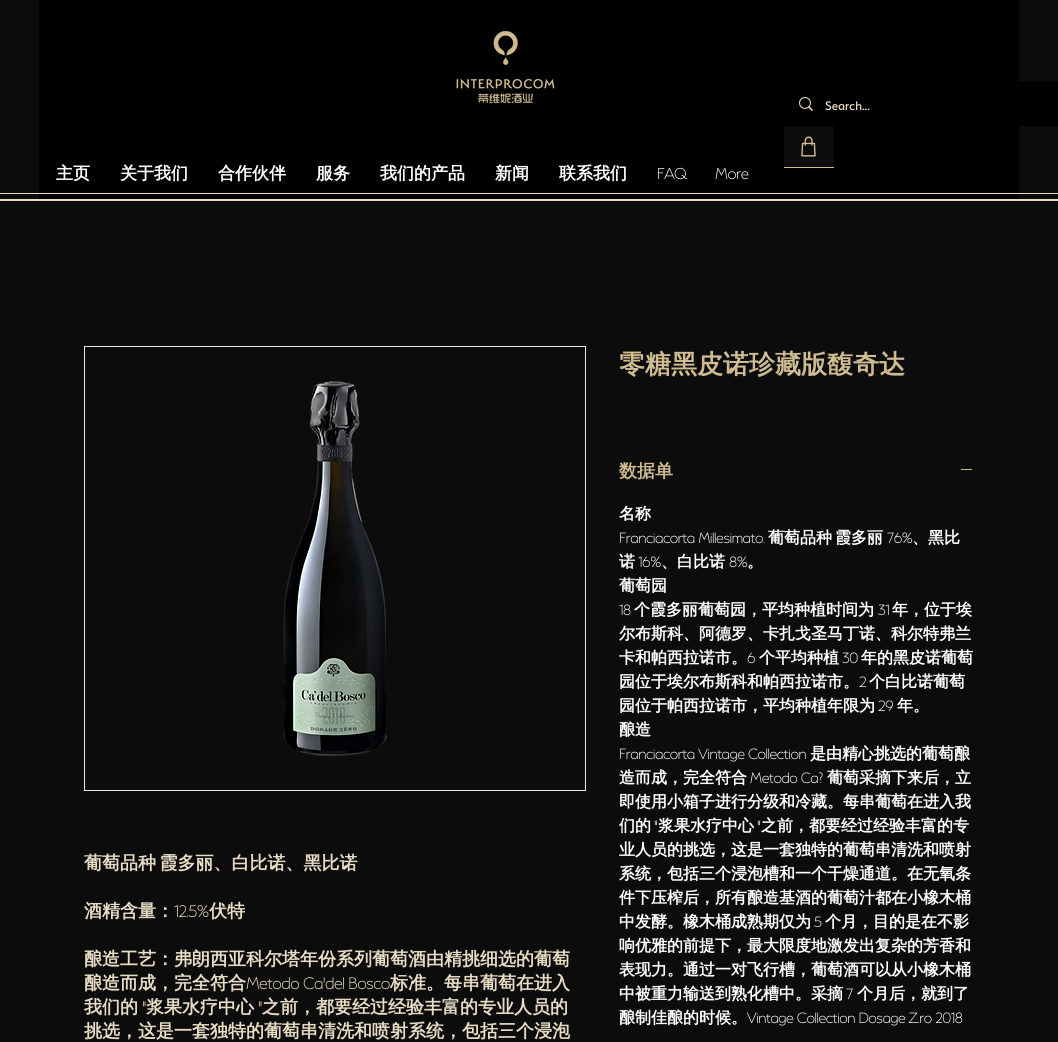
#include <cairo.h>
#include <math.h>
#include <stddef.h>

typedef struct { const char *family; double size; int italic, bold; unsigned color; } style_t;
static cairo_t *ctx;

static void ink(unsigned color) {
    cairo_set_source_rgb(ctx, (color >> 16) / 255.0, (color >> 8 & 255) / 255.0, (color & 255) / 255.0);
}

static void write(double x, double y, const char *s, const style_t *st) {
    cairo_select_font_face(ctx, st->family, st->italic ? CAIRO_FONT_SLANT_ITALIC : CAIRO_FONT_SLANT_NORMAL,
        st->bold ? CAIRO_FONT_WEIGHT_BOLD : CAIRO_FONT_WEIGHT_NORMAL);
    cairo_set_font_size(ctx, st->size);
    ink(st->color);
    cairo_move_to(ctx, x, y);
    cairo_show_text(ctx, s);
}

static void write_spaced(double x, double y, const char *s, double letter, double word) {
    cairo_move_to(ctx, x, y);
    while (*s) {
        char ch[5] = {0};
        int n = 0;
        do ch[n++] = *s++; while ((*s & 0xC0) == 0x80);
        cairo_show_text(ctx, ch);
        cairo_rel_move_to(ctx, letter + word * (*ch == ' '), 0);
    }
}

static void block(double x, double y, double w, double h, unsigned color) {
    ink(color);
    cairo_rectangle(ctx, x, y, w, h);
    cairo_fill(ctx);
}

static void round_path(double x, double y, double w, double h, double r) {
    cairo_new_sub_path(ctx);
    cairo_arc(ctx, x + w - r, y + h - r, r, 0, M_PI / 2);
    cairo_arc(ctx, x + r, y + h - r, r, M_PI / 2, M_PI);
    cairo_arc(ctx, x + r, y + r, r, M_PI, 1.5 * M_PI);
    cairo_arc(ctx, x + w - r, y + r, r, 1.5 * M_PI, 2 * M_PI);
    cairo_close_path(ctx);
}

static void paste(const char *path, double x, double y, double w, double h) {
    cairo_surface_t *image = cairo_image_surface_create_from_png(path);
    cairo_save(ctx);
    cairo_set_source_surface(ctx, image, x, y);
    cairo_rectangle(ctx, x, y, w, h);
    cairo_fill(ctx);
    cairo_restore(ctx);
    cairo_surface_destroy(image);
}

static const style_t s1 = {"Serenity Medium", 14, 0, 0, 0xe8dcc5};
static const style_t s2 = {"WenQuanYi Zen Hei", 17, 0, 1, 0xffffff};
static const style_t s3 = {"Serenity", 17, 0, 1, 0xffffff};
static const style_t s4 = {"WenQuanYi Zen Hei", 18, 0, 1, 0xe8dcc5};
static const style_t s5 = {"Serenity", 18, 0, 1, 0xe8dcc5};
static const style_t s6 = {"WenQuanYi Zen Hei", 26, 0, 1, 0xd0bc92};
static const style_t s7 = {"WenQuanYi Zen Hei", 18, 0, 1, 0xd0bc92};
static const style_t s8 = {"WenQuanYi Zen Hei", 16, 0, 1, 0xffffff};
static const style_t s9 = {"Serenity", 16, 0, 1, 0xffffff};

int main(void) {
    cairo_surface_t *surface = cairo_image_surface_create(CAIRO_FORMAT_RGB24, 1058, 1042);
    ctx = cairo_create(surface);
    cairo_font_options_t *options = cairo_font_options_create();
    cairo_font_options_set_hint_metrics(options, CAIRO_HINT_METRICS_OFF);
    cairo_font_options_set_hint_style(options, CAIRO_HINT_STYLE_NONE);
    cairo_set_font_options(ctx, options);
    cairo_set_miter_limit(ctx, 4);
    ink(0x0c0c0c);
    cairo_paint(ctx);
    block(39, 0, 980, 199, 0x000000);
    paste("pic1.png", 456, 30, 99, 74);
    round_path(787, 81, 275, 45, 4);
    cairo_fill(ctx);
    paste("pic2.png", 799, 97, 14, 14);
    write(825, 110, "Search...", &s1);
    block(784, 126, 50, 41, 0x0c0c0c);
    block(784, 167, 50, 1, 0xd0bc92);
    paste("pic3.png", 801, 136, 15, 21);
    write(56, 179, "主页", &s2);
    write(120, 179, "关于我们", &s2);
    write(218, 179, "合作伙伴", &s2);
    write(316, 179, "服务", &s2);
    write(380, 179, "我们的产品", &s2);
    write(495, 179, "新闻", &s2);
    write(559, 179, "联系我们", &s2);
    write(657, 179, "FAQ", &s3);
    write(715, 179, "More", &s3);
    block(0, 193, 1058, 1, 0xe8dcc5);
    block(0, 199, 1058, 2, 0xe8dcc5);
    cairo_rectangle(ctx, 84.5, 346.5, 501, 444);
    ink(0xe6e7ea);
    cairo_set_line_width(ctx, 1);
    cairo_stroke(ctx);
    paste("pic4.png", 283, 381, 104, 375);
    cairo_select_font_face(ctx, "WenQuanYi Zen Hei", CAIRO_FONT_SLANT_NORMAL, CAIRO_FONT_WEIGHT_BOLD);
    cairo_set_font_size(ctx, 18);
    ink(0xe8dcc5);
    write_spaced(84, 869, "葡萄品种 霞多丽、白比诺、黑比诺", 0, -2);
    write(84, 917, "酒精含量：", &s4);
    write(174, 917, "12.5%", &s5);
    write(209, 917, "伏特", &s4);
    write(84, 965, "酿造工艺：弗朗西亚科尔塔年份系列葡萄酒由精挑细选的葡萄", &s4);
    write(84, 989, "酿造而成，完全符合", &s4);
    write(246, 989, "Metodo Ca'del Bosco", &s5);
    write(390, 989, "标准。每串葡萄在进入", &s4);
    write(84, 1013, "我们的", &s4);
    write(142, 1013, "\"", &s5);
    write(146, 1013, "浆果水疗中心", &s4);
    write(258, 1013, "\"", &s5);
    write(262, 1013, "之前，都要经过经验丰富的专业人员的", &s4);
    write(84, 1037, "挑选，这是一套独特的葡萄串清洗和喷射系统，包括三个浸泡", &s4);
    write(619, 373, "零糖黑皮诺珍藏版馥奇达", &s6);
    write(619, 477, "数据单", &s7);
    block(961, 469, 11, 1, 0xd0bc92);
    write(619, 519, "名称", &s8);
    write(619, 543, "Franciacorta Millesimato.", &s9);
    write(768, 543, "葡萄品种", &s8);
    write(835, 543, "霞多丽", &s8);
    write(887, 543, "76%", &s9);
    write(912, 543, "、黑比", &s8);
    write(619, 567, "诺", &s8);
    write(638, 567, "16%", &s9);
    write(661, 567, "、白比诺", &s8);
    write(729, 567, "8%", &s9);
    write(747, 567, "。", &s8);
    write(619, 591, "葡萄园", &s8);
    write(619, 615, "18", &s9);
    write(634, 615, "个霞多丽葡萄园，平均种植时间为", &s8);
    write(878, 615, "31", &s9);
    write(892, 615, "年，位于埃", &s8);
    write(619, 639, "尔布斯科、阿德罗、卡扎戈圣马丁诺、科尔特弗兰", &s8);
    write(619, 663, "卡和帕西拉诺市。", &s8);
    write(747, 663, "6", &s9);
    write(759, 663, "个平均种植", &s8);
    write(842, 663, "30", &s9);
    write(861, 663, "年的黑皮诺葡萄", &s8);
    write(619, 687, "园位于埃尔布斯科和帕西拉诺市。", &s8);
    write(859, 687, "2", &s9);
    write(869, 687, "个白比诺葡萄", &s8);
    write(619, 711, "园位于帕西拉诺市，平均种植年限为", &s8);
    write(878, 711, "29", &s9);
    write(897, 711, "年。", &s8);
    write(619, 735, "酿造", &s8);
    write(619, 759, "Franciacorta Vintage Collection", &s9);
    write(810, 759, "是由精心挑选的葡萄酿", &s8);
    write(619, 783, "造而成，完全符合", &s8);
    write(750, 783, "Metodo Ca?", &s9);
    write(827, 783, "葡萄采摘下来后，立", &s8);
    write(619, 807, "即使用小箱子进行分级和冷藏。每串葡萄在进入我", &s8);
    write(619, 831, "们的", &s8);
    write(654, 831, "\"", &s9);
    write(658, 831, "浆果水疗中心", &s8);
    write(757, 831, "\"", &s9);
    write(761, 831, "之前，都要经过经验丰富的专", &s8);
    write(619, 855, "业人员的挑选，这是一套独特的葡萄串清洗和喷射", &s8);
    write(619, 879, "系统，包括三个浸泡槽和一个干燥通道。在无氧条", &s8);
    write(619, 903, "件下压榨后，所有酿造基酒的葡萄汁都在小橡木桶", &s8);
    write(619, 927, "中发酵。橡木桶成熟期仅为", &s8);
    write(814, 927, "5", &s9);
    write(825, 927, "个月，目的是在不影", &s8);
    write(619, 951, "响优雅的前提下，最大限度地激发出复杂的芳香和", &s8);
    write(619, 975, "表现力。通过一对飞行槽，葡萄酒可以从小橡木桶", &s8);
    write(619, 999, "中被重力输送到熟化槽中。采摘", &s8);
    write(846, 999, "7", &s9);
    write(857, 999, "个月后，就到了", &s8);
    write(619, 1023, "酿制佳酿的时候。", &s8);
    write(747, 1023, "Vintage Collection Dosage Z.ro 2018", &s9);
    cairo_surface_write_to_png(surface, "screenshot.png");
    cairo_font_options_destroy(options);
    cairo_destroy(ctx);
    cairo_surface_destroy(surface);
    return 0;
}
